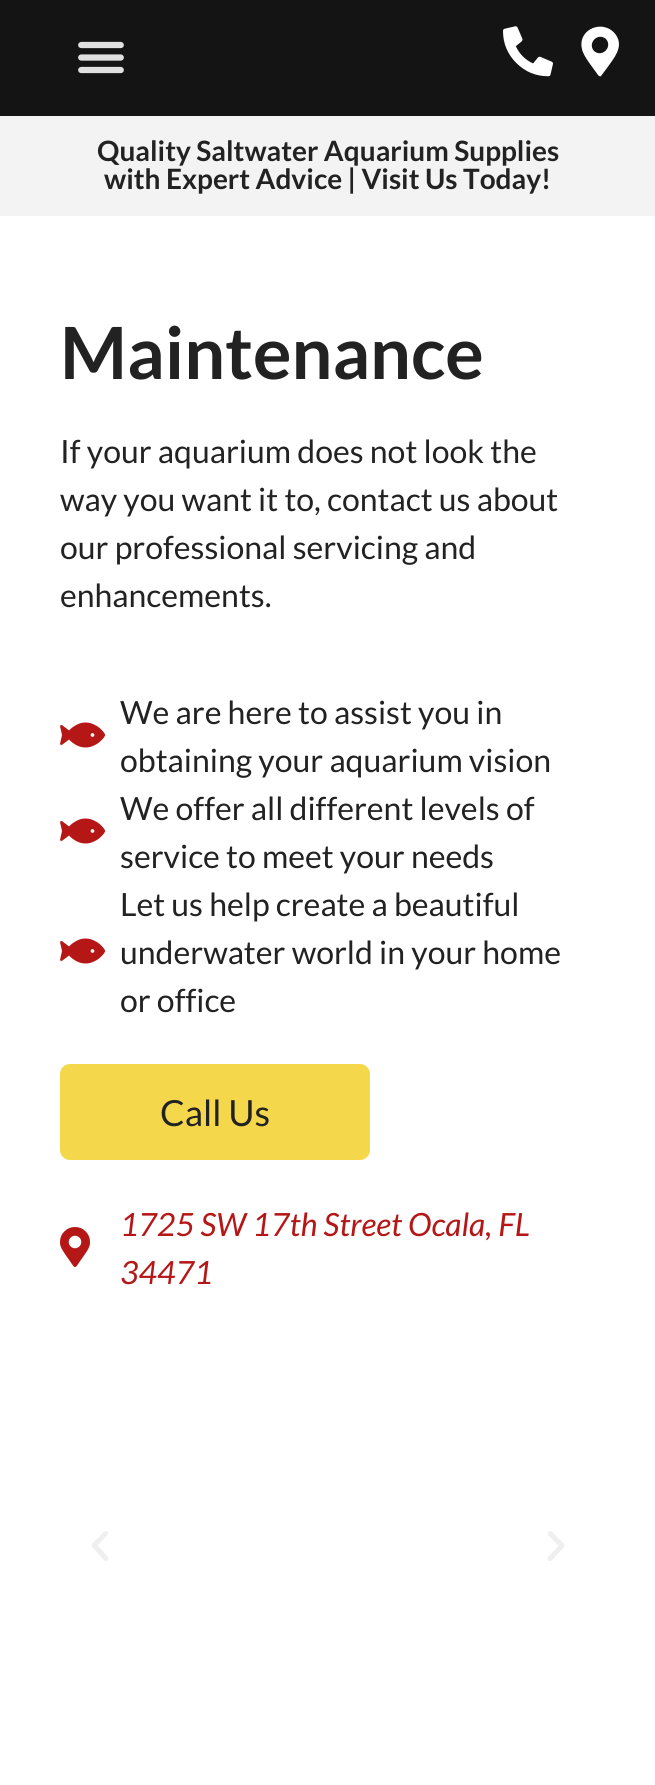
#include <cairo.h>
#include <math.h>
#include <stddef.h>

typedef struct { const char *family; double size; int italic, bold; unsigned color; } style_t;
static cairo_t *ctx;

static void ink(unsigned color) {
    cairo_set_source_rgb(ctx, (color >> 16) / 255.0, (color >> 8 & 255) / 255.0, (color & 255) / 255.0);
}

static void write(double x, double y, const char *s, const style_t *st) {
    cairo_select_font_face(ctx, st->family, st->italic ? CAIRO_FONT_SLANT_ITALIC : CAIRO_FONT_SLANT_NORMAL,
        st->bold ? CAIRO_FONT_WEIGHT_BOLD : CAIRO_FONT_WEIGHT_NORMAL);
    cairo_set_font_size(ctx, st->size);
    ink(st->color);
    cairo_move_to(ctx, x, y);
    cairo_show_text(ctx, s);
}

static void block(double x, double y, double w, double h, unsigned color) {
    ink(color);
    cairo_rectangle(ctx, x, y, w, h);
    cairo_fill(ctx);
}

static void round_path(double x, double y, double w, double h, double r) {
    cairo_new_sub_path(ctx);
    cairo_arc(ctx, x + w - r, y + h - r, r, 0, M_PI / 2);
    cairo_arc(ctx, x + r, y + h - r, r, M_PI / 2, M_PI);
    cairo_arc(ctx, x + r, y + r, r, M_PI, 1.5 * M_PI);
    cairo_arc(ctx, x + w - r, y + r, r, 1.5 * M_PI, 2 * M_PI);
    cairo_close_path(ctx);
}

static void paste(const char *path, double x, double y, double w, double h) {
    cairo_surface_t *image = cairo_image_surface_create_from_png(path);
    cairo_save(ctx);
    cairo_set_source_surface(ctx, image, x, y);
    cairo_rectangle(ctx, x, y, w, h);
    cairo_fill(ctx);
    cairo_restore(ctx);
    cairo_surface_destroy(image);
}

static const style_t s1 = {"Lato", 28, 0, 1, 0x222222};
static const style_t s2 = {"Lato", 72, 0, 1, 0x222222};
static const style_t s3 = {"Lato", 32, 0, 0, 0x222222};
static const style_t s4 = {"Lato", 36, 0, 0, 0x222222};
static const style_t s5 = {"Lato", 32, 1, 0, 0xb51616};

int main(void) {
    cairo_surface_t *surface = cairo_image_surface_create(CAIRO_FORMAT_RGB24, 655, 1785);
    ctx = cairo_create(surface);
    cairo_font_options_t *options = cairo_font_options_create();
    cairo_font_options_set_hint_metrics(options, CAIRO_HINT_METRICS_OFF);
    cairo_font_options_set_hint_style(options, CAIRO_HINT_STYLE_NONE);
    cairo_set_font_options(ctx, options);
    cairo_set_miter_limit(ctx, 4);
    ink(0xffffff);
    cairo_paint(ctx);
    block(0, 0, 655, 116, 0x141414);
    paste("pic1.png", 78, 41, 46, 33);
    paste("pic2.png", 503, 26, 50, 51);
    ink(0xffffff);
    cairo_new_path(ctx);
    cairo_move_to(ctx, 598, 75);
    cairo_curve_to(ctx, 594, 69, 583, 56, 582, 49);
    cairo_curve_to(ctx, 577, 29, 604, 18, 616, 35);
    cairo_curve_to(ctx, 624, 47, 614, 58, 607, 68);
    cairo_line_to(ctx, 601, 76);
    cairo_curve_to(ctx, 600, 77, 599, 76, 598, 75);
    cairo_close_path(ctx);
    cairo_move_to(ctx, 594, 51);
    cairo_curve_to(ctx, 602, 58, 613, 47, 606, 39);
    cairo_curve_to(ctx, 598, 32, 587, 43, 594, 51);
    cairo_close_path(ctx);
    cairo_fill(ctx);
    block(0, 116, 655, 100, 0xf3f3f3);
    write(97, 161, "Quality Saltwater Aquarium Supplies", &s1);
    write(104, 189, "with Expert Advice | Visit Us Today!", &s1);
    write(60, 379, "Maintenance", &s2);
    write(60, 463, "If your aquarium does not look the", &s3);
    write(60, 511, "way you want it to, contact us about", &s3);
    write(60, 559, "our professional servicing and", &s3);
    write(60, 607, "enhancements.", &s3);
    paste("pic3.png", 60, 722, 45, 26);
    write(120, 724, "We are here to assist you in", &s3);
    write(120, 772, "obtaining your aquarium vision", &s3);
    paste("pic3.png", 60, 818, 45, 26);
    write(120, 820, "We offer all different levels of", &s3);
    write(120, 868, "service to meet your needs", &s3);
    paste("pic3.png", 60, 938, 45, 26);
    write(120, 916, "Let us help create a beautiful", &s3);
    write(120, 964, "underwater world in your home", &s3);
    write(120, 1012, "or office", &s3);
    ink(0xf4d74a);
    round_path(60, 1064, 310, 96, 10);
    cairo_fill(ctx);
    write(160, 1126, "Call Us", &s4);
    paste("pic4.png", 60, 1227, 30, 40);
    write(120, 1236, "1725 SW 17th Street Ocala, FL", &s5);
    write(120, 1284, "34471", &s5);
    paste("pic5.png", 91, 1531, 18, 30);
    paste("pic6.png", 547, 1531, 18, 30);
    cairo_surface_write_to_png(surface, "screenshot.png");
    cairo_font_options_destroy(options);
    cairo_destroy(ctx);
    cairo_surface_destroy(surface);
    return 0;
}
